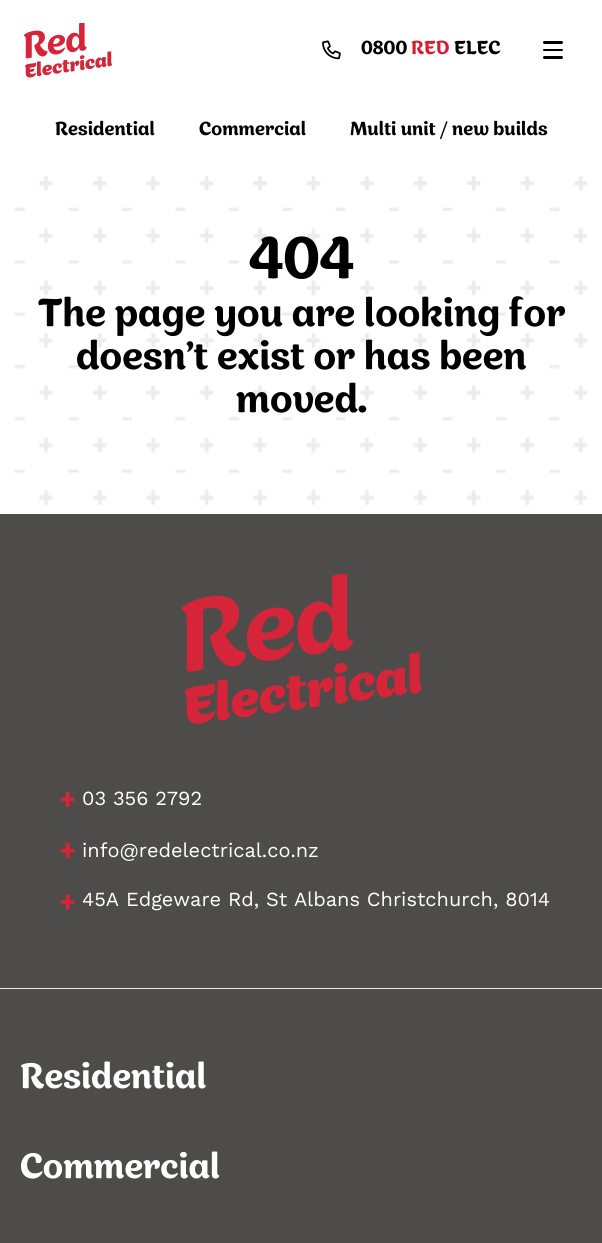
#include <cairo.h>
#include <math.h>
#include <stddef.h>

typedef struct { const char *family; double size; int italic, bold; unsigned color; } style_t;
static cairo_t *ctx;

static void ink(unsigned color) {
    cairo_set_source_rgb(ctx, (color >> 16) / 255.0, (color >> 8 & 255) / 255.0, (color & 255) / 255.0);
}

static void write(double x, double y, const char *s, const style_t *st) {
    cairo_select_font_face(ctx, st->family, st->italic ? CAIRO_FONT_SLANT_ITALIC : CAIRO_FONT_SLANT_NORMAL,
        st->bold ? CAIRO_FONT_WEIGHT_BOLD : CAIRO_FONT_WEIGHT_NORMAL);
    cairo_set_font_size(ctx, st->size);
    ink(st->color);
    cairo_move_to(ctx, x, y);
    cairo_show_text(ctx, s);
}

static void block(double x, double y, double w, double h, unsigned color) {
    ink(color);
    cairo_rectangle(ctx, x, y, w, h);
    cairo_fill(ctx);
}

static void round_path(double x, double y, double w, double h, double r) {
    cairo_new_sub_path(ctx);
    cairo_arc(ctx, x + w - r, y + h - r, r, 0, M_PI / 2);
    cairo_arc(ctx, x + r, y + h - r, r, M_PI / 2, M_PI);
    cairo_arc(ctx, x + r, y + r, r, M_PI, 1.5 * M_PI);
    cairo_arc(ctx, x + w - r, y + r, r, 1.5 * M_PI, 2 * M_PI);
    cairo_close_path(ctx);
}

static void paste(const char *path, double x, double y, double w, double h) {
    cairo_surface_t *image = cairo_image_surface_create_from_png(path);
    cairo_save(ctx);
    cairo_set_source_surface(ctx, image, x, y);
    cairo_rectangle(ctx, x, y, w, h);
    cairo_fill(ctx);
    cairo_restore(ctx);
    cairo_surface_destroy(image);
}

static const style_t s1 = {"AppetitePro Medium", 18.75, 0, 0, 0x000000};
static const style_t s2 = {"AppetitePro Medium", 18.75, 0, 0, 0xda1a31};
static const style_t s3 = {"AppetitePro Medium", 58, 0, 0, 0x000000};
static const style_t s4 = {"AppetitePro Medium", 38.75, 0, 0, 0x000000};
static const style_t s5 = {"Work Sans", 20, 0, 0, 0xffffff};
static const style_t s6 = {"AppetitePro Medium", 35, 0, 0, 0xffffff};

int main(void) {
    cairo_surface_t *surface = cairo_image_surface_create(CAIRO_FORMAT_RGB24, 602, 1243);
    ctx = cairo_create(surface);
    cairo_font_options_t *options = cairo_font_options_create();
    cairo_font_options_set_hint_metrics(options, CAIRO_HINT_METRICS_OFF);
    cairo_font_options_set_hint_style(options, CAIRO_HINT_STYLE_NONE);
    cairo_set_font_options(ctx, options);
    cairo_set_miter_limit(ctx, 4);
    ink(0xffffff);
    cairo_paint(ctx);
    paste("pic1.png", 24, 23, 88, 55);
    paste("pic2.png", 322, 40, 19, 20);
    write(361, 54, "0800", &s1);
    write(411, 54, "RED", &s2);
    write(454, 54, "ELEC", &s1);
    round_path(543, 41, 20, 3, 1.5);
    cairo_fill(ctx);
    round_path(543, 49, 20, 2, 1);
    cairo_fill(ctx);
    round_path(543, 56, 20, 3, 1.5);
    cairo_fill(ctx);
    write(55, 135, "Residential", &s1);
    write(199, 135, "Commercial", &s1);
    write(350, 135, "Multi unit / new builds", &s1);
    paste("pic3.png", 14, 175, 574, 330);
    write(249, 278, "404", &s3);
    write(38, 326, "The page you are looking for", &s4);
    write(76, 369, "doesn't exist or has been", &s4);
    write(236, 412, "moved.", &s4);
    block(0, 514, 602, 729, 0x4e4b4b);
    block(0, 988, 602, 1, 0xe5e7eb);
    paste("pic4.png", 181, 574, 241, 150);
    paste("pic5.png", 60, 791, 15, 16);
    write(82, 805, "03 356 2792", &s5);
    paste("pic6.png", 60, 843, 15, 16);
    write(82, 857, "info@redelectrical.co.nz", &s5);
    paste("pic7.png", 60, 894, 15, 16);
    write(82, 906, "45A Edgeware Rd, St Albans Christchurch, 8014", &s5);
    write(20, 1088, "Residential", &s6);
    write(20, 1178, "Commercial", &s6);
    cairo_surface_write_to_png(surface, "screenshot.png");
    cairo_font_options_destroy(options);
    cairo_destroy(ctx);
    cairo_surface_destroy(surface);
    return 0;
}
